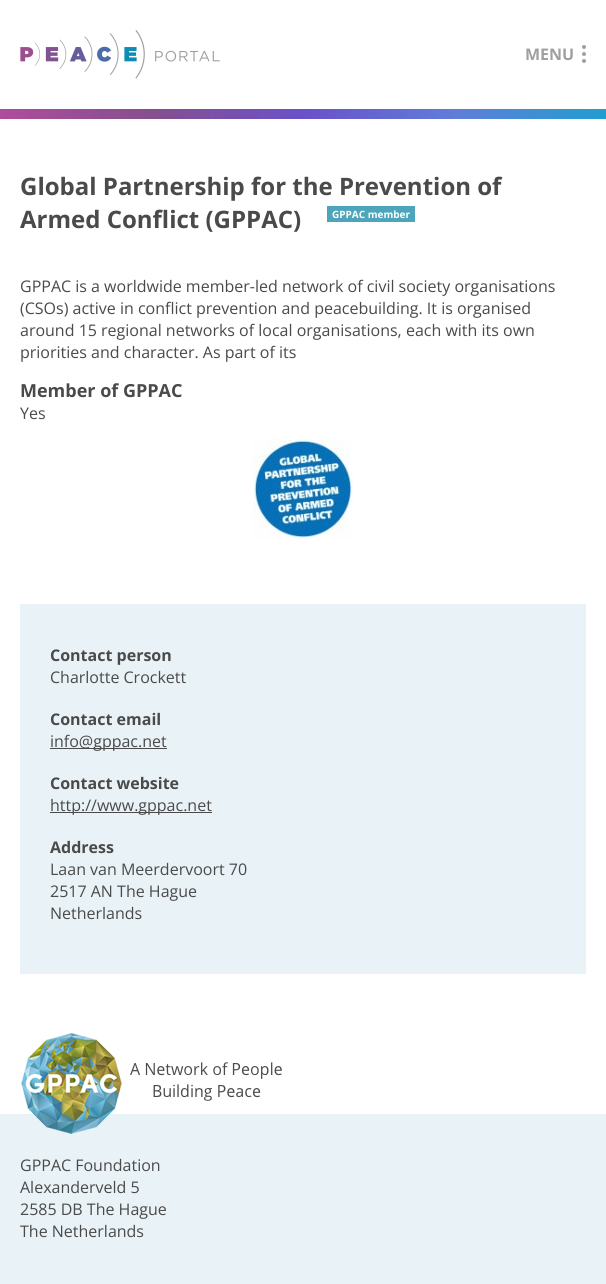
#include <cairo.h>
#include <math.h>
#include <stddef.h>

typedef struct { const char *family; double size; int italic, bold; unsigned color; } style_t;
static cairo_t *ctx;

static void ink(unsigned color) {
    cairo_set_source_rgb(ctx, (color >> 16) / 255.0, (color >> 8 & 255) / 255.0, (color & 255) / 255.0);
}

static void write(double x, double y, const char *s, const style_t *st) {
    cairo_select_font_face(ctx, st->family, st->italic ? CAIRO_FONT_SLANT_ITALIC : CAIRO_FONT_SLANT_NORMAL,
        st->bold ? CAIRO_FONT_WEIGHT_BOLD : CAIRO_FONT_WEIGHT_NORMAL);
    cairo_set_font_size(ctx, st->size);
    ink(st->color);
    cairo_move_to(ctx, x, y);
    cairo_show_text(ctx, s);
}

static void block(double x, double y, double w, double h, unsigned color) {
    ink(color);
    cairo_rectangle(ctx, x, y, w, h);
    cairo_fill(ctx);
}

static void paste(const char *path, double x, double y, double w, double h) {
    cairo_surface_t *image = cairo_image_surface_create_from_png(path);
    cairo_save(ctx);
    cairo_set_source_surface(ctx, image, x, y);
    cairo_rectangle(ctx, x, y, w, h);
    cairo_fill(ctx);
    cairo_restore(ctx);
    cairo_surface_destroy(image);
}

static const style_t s1 = {"Open Sans", 16, 0, 1, 0x9e9f9e};
static const style_t s2 = {"Open Sans", 24, 0, 1, 0x4a4a4a};
static const style_t s3 = {"Open Sans", 10, 0, 1, 0xffffff};
static const style_t s4 = {"Open Sans", 16, 0, 0, 0x4a4a4a};
static const style_t s5 = {"Open Sans", 18, 0, 1, 0x4a4a4a};
static const style_t s6 = {"Open Sans", 16, 0, 1, 0x4a4a4a};

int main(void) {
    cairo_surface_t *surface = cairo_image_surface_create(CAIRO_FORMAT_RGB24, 606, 1284);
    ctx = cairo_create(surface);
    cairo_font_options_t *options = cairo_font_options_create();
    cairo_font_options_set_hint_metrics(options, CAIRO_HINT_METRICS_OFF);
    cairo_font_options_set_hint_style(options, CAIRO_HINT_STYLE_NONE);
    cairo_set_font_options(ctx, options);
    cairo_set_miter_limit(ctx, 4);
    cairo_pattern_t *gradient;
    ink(0xffffff);
    cairo_paint(ctx);
    paste("pic1.png", 20, 30, 200, 49);
    ink(0x9e9f9e);
    cairo_arc(ctx, 584, 47, 2, 0, 2 * M_PI);
    cairo_fill(ctx);
    cairo_arc(ctx, 584, 54, 2, 0, 2 * M_PI);
    cairo_fill(ctx);
    cairo_arc(ctx, 584, 61, 2, 0, 2 * M_PI);
    cairo_fill(ctx);
    write(525, 60, "MENU", &s1);
    gradient = cairo_pattern_create_linear(0, 114, 606, 114);
    cairo_pattern_add_color_stop_rgba(gradient, 0, 0.682, 0.302, 0.612, 1);
    cairo_pattern_add_color_stop_rgba(gradient, 0.25, 0.525, 0.31, 0.557, 1);
    cairo_pattern_add_color_stop_rgba(gradient, 0.5, 0.416, 0.318, 0.788, 1);
    cairo_pattern_add_color_stop_rgba(gradient, 0.75, 0.376, 0.49, 0.847, 1);
    cairo_pattern_add_color_stop_rgba(gradient, 1, 0.129, 0.62, 0.816, 1);
    cairo_set_source(ctx, gradient);
    cairo_pattern_destroy(gradient);
    cairo_rectangle(ctx, 0, 109, 606, 10);
    cairo_fill(ctx);
    write(20, 195, "Global Partnership for the Prevention of", &s2);
    write(20, 228, "Armed Conflict (GPPAC)", &s2);
    block(327, 206, 88, 16, 0x4ca5ba);
    write(332, 218, "GPPAC member", &s3);
    write(20, 292, "GPPAC is a worldwide member-led network of civil society organisations", &s4);
    write(20, 314, "(CSOs) active in conflict prevention and peacebuilding. It is organised", &s4);
    write(20, 336, "around 15 regional networks of local organisations, each with its own", &s4);
    write(20, 358, "priorities and character. As part of its", &s4);
    write(20, 397, "Member of GPPAC", &s5);
    write(20, 419, "Yes", &s4);
    paste("pic2.png", 253, 439, 100, 100);
    block(20, 604, 566, 370, 0xe9f3f7);
    write(50, 661, "Contact person", &s6);
    write(50, 683, "Charlotte Crockett", &s4);
    write(50, 725, "Contact email", &s6);
    block(50, 748, 117, 1, 0x4a4a4a);
    write(50, 747, "info@gppac.net", &s4);
    write(50, 789, "Contact website", &s6);
    block(50, 812, 162, 1, 0x4a4a4a);
    write(50, 811, "http://www.gppac.net", &s4);
    write(50, 853, "Address", &s6);
    write(50, 875, "Laan van Meerdervoort 70", &s4);
    write(50, 897, "2517 AN The Hague", &s4);
    write(50, 919, "Netherlands", &s4);
    block(0, 1114, 606, 170, 0xe9f3f7);
    paste("pic3.png", 21, 1033, 261, 101);
    write(20, 1171, "GPPAC Foundation", &s4);
    write(20, 1193, "Alexanderveld 5", &s4);
    write(20, 1215, "2585 DB The Hague", &s4);
    write(20, 1237, "The Netherlands", &s4);
    cairo_surface_write_to_png(surface, "screenshot.png");
    cairo_font_options_destroy(options);
    cairo_destroy(ctx);
    cairo_surface_destroy(surface);
    return 0;
}
